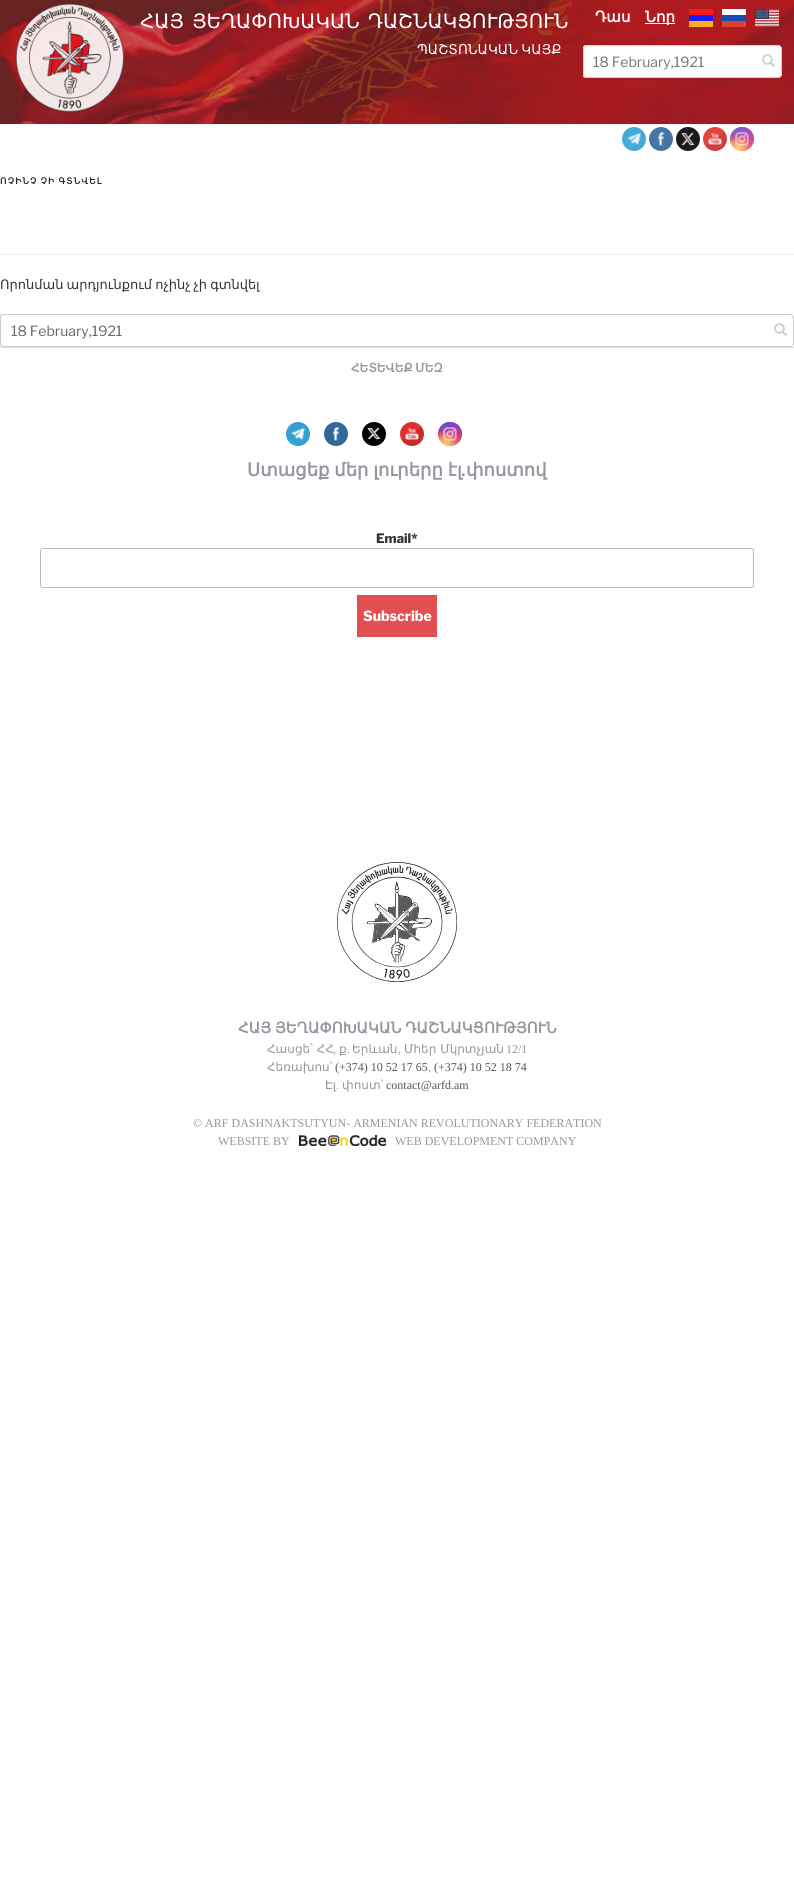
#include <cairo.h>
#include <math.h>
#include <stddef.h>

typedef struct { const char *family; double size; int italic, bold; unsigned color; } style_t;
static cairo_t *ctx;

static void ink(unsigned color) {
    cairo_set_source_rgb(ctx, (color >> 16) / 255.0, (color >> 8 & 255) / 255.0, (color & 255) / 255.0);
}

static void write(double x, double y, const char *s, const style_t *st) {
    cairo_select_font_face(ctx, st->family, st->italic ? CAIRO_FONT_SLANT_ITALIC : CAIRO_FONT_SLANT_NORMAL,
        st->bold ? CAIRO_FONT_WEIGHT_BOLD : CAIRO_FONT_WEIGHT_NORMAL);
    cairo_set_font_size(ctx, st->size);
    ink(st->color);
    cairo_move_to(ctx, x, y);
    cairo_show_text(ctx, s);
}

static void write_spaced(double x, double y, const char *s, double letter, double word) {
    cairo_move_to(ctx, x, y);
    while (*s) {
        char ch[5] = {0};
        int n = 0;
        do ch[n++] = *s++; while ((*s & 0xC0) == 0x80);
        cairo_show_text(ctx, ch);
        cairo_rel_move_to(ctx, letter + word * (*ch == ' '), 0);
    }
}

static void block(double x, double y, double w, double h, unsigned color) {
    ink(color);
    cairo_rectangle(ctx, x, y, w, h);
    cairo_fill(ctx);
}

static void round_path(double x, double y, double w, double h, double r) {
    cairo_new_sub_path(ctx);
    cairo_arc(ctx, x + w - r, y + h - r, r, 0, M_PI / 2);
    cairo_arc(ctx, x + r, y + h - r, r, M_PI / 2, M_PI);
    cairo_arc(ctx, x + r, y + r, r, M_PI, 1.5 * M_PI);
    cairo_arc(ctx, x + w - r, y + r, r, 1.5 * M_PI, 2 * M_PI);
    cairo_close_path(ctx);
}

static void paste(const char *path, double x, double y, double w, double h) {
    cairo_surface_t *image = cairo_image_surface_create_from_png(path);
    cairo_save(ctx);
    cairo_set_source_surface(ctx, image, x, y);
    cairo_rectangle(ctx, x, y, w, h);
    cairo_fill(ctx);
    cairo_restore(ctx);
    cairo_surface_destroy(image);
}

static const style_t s1 = {"DejaVu Sans", 15, 0, 1, 0xffffff};
static const style_t s2 = {"Libre Franklin", 14, 0, 0, 0x757575};
static const style_t s3 = {"Libre Franklin", 14, 0, 0, 0x666666};
static const style_t s4 = {"Liberation Serif", 18, 0, 1, 0x93979f};
static const style_t s5 = {"DejaVu Sans", 18, 0, 1, 0x93979f};
static const style_t s6 = {"Libre Franklin ExtraBold", 13, 0, 0, 0x333333};
static const style_t s7 = {"Libre Franklin ExtraBold", 14, 0, 0, 0xffffff};
static const style_t s8 = {"DejaVu Sans", 12, 0, 0, 0x93979f};
static const style_t s9 = {"Liberation Serif", 12, 0, 0, 0x93979f};
static const style_t s10 = {"Liberation Serif", 12, 0, 0, 0x555555};

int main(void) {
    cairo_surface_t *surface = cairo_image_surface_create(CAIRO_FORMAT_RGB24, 794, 1896);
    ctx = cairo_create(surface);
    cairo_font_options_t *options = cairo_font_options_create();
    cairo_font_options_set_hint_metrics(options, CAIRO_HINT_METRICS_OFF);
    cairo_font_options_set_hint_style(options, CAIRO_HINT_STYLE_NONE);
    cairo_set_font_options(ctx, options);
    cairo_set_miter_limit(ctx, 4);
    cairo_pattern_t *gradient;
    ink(0xffffff);
    cairo_paint(ctx);
    paste("pic1.png", 0, 0, 794, 124);
    paste("pic2.png", 15, 3, 110, 110);
    cairo_select_font_face(ctx, "DejaVu Sans", CAIRO_FONT_SLANT_NORMAL, CAIRO_FONT_WEIGHT_NORMAL);
    cairo_set_font_size(ctx, 19.85);
    ink(0xffffff);
    write_spaced(140, 28, "ՀԱՅ ՅԵՂԱՓՈԽԱԿԱՆ ԴԱՇՆԱԿՑՈՒԹՅՈՒՆ", 0, 2);
    cairo_set_font_size(ctx, 13.5);
    write_spaced(417, 54, "ՊԱՇՏՈՆԱԿԱՆ ԿԱՅՔ", 0, -1);
    write(595, 22, "Դաս", &s1);
    block(645, 23, 30, 1, 0xffffff);
    write(645, 22, "Նոր", &s1);
    block(689, 9, 24, 6, 0xff1919);
    block(689, 15, 24, 6, 0x1919ff);
    block(689, 21, 24, 6, 0xffae19);
    block(722, 9, 24, 6, 0xffffff);
    block(722, 15, 24, 6, 0x194cae);
    block(722, 21, 24, 6, 0xd94034);
    paste("pic3.png", 755, 9, 24, 18);
    ink(0xffffff);
    cairo_new_path(ctx);
    cairo_move_to(ctx, 586, 45);
    cairo_line_to(ctx, 762, 45);
    cairo_line_to(ctx, 762, 78);
    cairo_line_to(ctx, 586, 78);
    cairo_curve_to(ctx, 584.5, 78, 583, 76.5, 583, 75);
    cairo_line_to(ctx, 583, 48);
    cairo_curve_to(ctx, 583, 46.5, 584.5, 45, 586, 45);
    cairo_close_path(ctx);
    cairo_fill(ctx);
    ink(0xd1d1d1);
    cairo_set_fill_rule(ctx, CAIRO_FILL_RULE_EVEN_ODD);
    cairo_new_path(ctx);
    cairo_move_to(ctx, 586, 45);
    cairo_line_to(ctx, 762, 45);
    cairo_line_to(ctx, 762, 78);
    cairo_line_to(ctx, 586, 78);
    cairo_curve_to(ctx, 584, 78, 583, 77, 583, 75);
    cairo_line_to(ctx, 583, 48);
    cairo_curve_to(ctx, 583, 46, 584, 45, 586, 45);
    cairo_close_path(ctx);
    cairo_move_to(ctx, 586, 46);
    cairo_line_to(ctx, 762, 46);
    cairo_line_to(ctx, 762, 77);
    cairo_line_to(ctx, 586, 77);
    cairo_curve_to(ctx, 585, 77, 584, 76, 584, 75);
    cairo_line_to(ctx, 584, 48);
    cairo_curve_to(ctx, 584, 47, 585, 46, 586, 46);
    cairo_close_path(ctx);
    cairo_fill(ctx);
    write(593, 67, "18 February,1921", &s2);
    ink(0xffffff);
    cairo_new_path(ctx);
    cairo_move_to(ctx, 762, 45);
    cairo_line_to(ctx, 778, 45);
    cairo_curve_to(ctx, 780, 45, 782, 47, 782, 49);
    cairo_line_to(ctx, 782, 74);
    cairo_curve_to(ctx, 782, 76, 780, 78, 778, 78);
    cairo_line_to(ctx, 762, 78);
    cairo_close_path(ctx);
    cairo_fill(ctx);
    ink(0xd1d1d1);
    cairo_new_path(ctx);
    cairo_move_to(ctx, 762, 45);
    cairo_line_to(ctx, 778, 45);
    cairo_curve_to(ctx, 780, 45, 782, 47, 782, 49);
    cairo_line_to(ctx, 782, 74);
    cairo_curve_to(ctx, 782, 76, 780, 78, 778, 78);
    cairo_line_to(ctx, 762, 78);
    cairo_close_path(ctx);
    cairo_move_to(ctx, 762, 46);
    cairo_line_to(ctx, 778, 46);
    cairo_curve_to(ctx, 779.5, 46, 781, 47.5, 781, 49);
    cairo_line_to(ctx, 781, 74);
    cairo_curve_to(ctx, 781, 75.5, 779.5, 77, 778, 77);
    cairo_line_to(ctx, 762, 77);
    cairo_close_path(ctx);
    cairo_fill(ctx);
    paste("pic4.png", 762, 54, 13, 13);
    ink(0x47aad6);
    cairo_arc(ctx, 634, 139, 12, 0, 2 * M_PI);
    cairo_fill(ctx);
    paste("pic5.png", 627, 133, 14, 12);
    ink(0x4775a3);
    cairo_arc(ctx, 661, 139, 12, 0, 2 * M_PI);
    cairo_fill(ctx);
    paste("pic6.png", 657, 132, 8, 14);
    ink(0x1a1a1a);
    cairo_arc(ctx, 688, 139, 12, 0, 2 * M_PI);
    cairo_fill(ctx);
    paste("pic7.png", 681, 133, 14, 13);
    gradient = cairo_pattern_create_linear(705, 126, 725, 152);
    cairo_pattern_add_color_stop_rgba(gradient, 0.14, 0.89, 0.267, 0.267, 1);
    cairo_pattern_add_color_stop_rgba(gradient, 0.49, 0.89, 0.267, 0.267, 1);
    cairo_pattern_add_color_stop_rgba(gradient, 0.49, 0.808, 0.247, 0.247, 1);
    cairo_pattern_add_color_stop_rgba(gradient, 0.85, 0.808, 0.247, 0.247, 1);
    cairo_set_source(ctx, gradient);
    cairo_pattern_destroy(gradient);
    cairo_arc(ctx, 715, 139, 12, 0, 2 * M_PI);
    cairo_fill(ctx);
    paste("pic8.png", 708, 132, 14, 13);
    gradient = cairo_pattern_create_linear(742, 127, 742, 151);
    cairo_pattern_add_color_stop_rgba(gradient, 0, 0.455, 0.416, 0.812, 1);
    cairo_pattern_add_color_stop_rgba(gradient, 0.3, 0.765, 0.275, 0.604, 1);
    cairo_pattern_add_color_stop_rgba(gradient, 0.5, 0.902, 0.322, 0.435, 1);
    cairo_pattern_add_color_stop_rgba(gradient, 0.7, 0.973, 0.518, 0.298, 1);
    cairo_pattern_add_color_stop_rgba(gradient, 1, 0.996, 0.8, 0.486, 1);
    cairo_set_source(ctx, gradient);
    cairo_pattern_destroy(gradient);
    cairo_arc(ctx, 742, 139, 12, 0, 2 * M_PI);
    cairo_fill(ctx);
    gradient = cairo_pattern_create_radial(754, 151, 0, 754, 151, 34);
    cairo_pattern_add_color_stop_rgba(gradient, 0, 0.867, 0.275, 0.529, 1);
    cairo_pattern_add_color_stop_rgba(gradient, 1, 0.867, 0.275, 0.529, 0);
    cairo_set_source(ctx, gradient);
    cairo_pattern_destroy(gradient);
    cairo_arc(ctx, 742, 139, 12, 0, 2 * M_PI);
    cairo_fill(ctx);
    gradient = cairo_pattern_create_radial(0, 0, 0, 0, 0, 1);
    cairo_pattern_set_matrix(gradient, &(cairo_matrix_t){1.0 / 20, 0, 0, 1.0 / 41, -1.0 * 744 / 20, -1.0 * 122 / 41});
    cairo_pattern_add_color_stop_rgba(gradient, 0, 0.584, 0.314, 0.784, 1);
    cairo_pattern_add_color_stop_rgba(gradient, 0.5, 0.584, 0.314, 0.784, 0);
    cairo_set_source(ctx, gradient);
    cairo_pattern_destroy(gradient);
    cairo_arc(ctx, 742, 139, 12, 0, 2 * M_PI);
    cairo_fill(ctx);
    gradient = cairo_pattern_create_radial(754, 127, 0, 754, 127, 34);
    cairo_pattern_add_color_stop_rgba(gradient, 0, 0.584, 0.314, 0.784, 1);
    cairo_pattern_add_color_stop_rgba(gradient, 0.5, 0.584, 0.314, 0.784, 0);
    cairo_set_source(ctx, gradient);
    cairo_pattern_destroy(gradient);
    cairo_arc(ctx, 742, 139, 12, 0, 2 * M_PI);
    cairo_fill(ctx);
    gradient = cairo_pattern_create_radial(0, 0, 0, 0, 0, 1);
    cairo_pattern_set_matrix(gradient, &(cairo_matrix_t){1.0 / 27, 0, 0, 1.0 / 51, -1.0 * 735 / 27, -1.0 * 115 / 51});
    cairo_pattern_add_color_stop_rgba(gradient, 0, 0.388, 0.412, 0.831, 1);
    cairo_pattern_add_color_stop_rgba(gradient, 0.5, 0.388, 0.412, 0.831, 0);
    cairo_set_source(ctx, gradient);
    cairo_pattern_destroy(gradient);
    cairo_arc(ctx, 742, 139, 12, 0, 2 * M_PI);
    cairo_fill(ctx);
    gradient = cairo_pattern_create_radial(0, 0, 0, 0, 0, 1);
    cairo_pattern_set_matrix(gradient, &(cairo_matrix_t){1.0 / 34, 0, 0, 1.0 / 42, -1.0 * 730 / 34, -1.0 * 121 / 42});
    cairo_pattern_add_color_stop_rgba(gradient, 0, 0.388, 0.412, 0.831, 1);
    cairo_pattern_add_color_stop_rgba(gradient, 0.5, 0.388, 0.412, 0.831, 0);
    cairo_set_source(ctx, gradient);
    cairo_pattern_destroy(gradient);
    cairo_arc(ctx, 742, 139, 12, 0, 2 * M_PI);
    cairo_fill(ctx);
    gradient = cairo_pattern_create_radial(730, 161, 0, 730, 161, 41);
    cairo_pattern_add_color_stop_rgba(gradient, 0, 0.996, 0.796, 0.455, 1);
    cairo_pattern_add_color_stop_rgba(gradient, 0.5, 0.996, 0.796, 0.455, 0);
    cairo_set_source(ctx, gradient);
    cairo_pattern_destroy(gradient);
    cairo_arc(ctx, 742, 139, 12, 0, 2 * M_PI);
    cairo_fill(ctx);
    gradient = cairo_pattern_create_radial(738, 149, 0, 738, 149, 27);
    cairo_pattern_add_color_stop_rgba(gradient, 0, 0.996, 0.796, 0.455, 1);
    cairo_pattern_add_color_stop_rgba(gradient, 0.5, 0.996, 0.796, 0.455, 0);
    cairo_set_source(ctx, gradient);
    cairo_pattern_destroy(gradient);
    cairo_arc(ctx, 742, 139, 12, 0, 2 * M_PI);
    cairo_fill(ctx);
    paste("pic9.png", 735, 132, 14, 14);
    block(0, 254, 794, 1, 0xeeeeee);
    cairo_select_font_face(ctx, "DejaVu Sans", CAIRO_FONT_SLANT_NORMAL, CAIRO_FONT_WEIGHT_BOLD);
    cairo_set_font_size(ctx, 8.75);
    ink(0x222222);
    write_spaced(0, 184, "ՈՉԻՆՉ ՉԻ ԳՏՆՎԵԼ", 1.25, -1);
    cairo_select_font_face(ctx, "DejaVu Sans", CAIRO_FONT_SLANT_NORMAL, CAIRO_FONT_WEIGHT_NORMAL);
    cairo_set_font_size(ctx, 13);
    ink(0x333333);
    write_spaced(0, 289, "Որոնման արդյունքում ոչինչ չի գտնվել", 0, -1);
    ink(0xcccccc);
    cairo_new_path(ctx);
    cairo_move_to(ctx, 3, 314);
    cairo_line_to(ctx, 774, 314);
    cairo_line_to(ctx, 774, 347);
    cairo_line_to(ctx, 3, 347);
    cairo_curve_to(ctx, 1, 347, 0, 346, 0, 344);
    cairo_line_to(ctx, 0, 317);
    cairo_curve_to(ctx, 0, 315, 1, 314, 3, 314);
    cairo_close_path(ctx);
    cairo_move_to(ctx, 3, 315);
    cairo_line_to(ctx, 774, 315);
    cairo_line_to(ctx, 774, 346);
    cairo_line_to(ctx, 3, 346);
    cairo_curve_to(ctx, 2, 346, 1, 345, 1, 344);
    cairo_line_to(ctx, 1, 317);
    cairo_curve_to(ctx, 1, 316, 2, 315, 3, 315);
    cairo_close_path(ctx);
    cairo_fill(ctx);
    write(11, 336, "18 February,1921", &s3);
    ink(0xcccccc);
    cairo_new_path(ctx);
    cairo_move_to(ctx, 774, 314);
    cairo_line_to(ctx, 790, 314);
    cairo_curve_to(ctx, 792, 314, 794, 316, 794, 318);
    cairo_line_to(ctx, 794, 343);
    cairo_curve_to(ctx, 794, 345, 792, 347, 790, 347);
    cairo_line_to(ctx, 774, 347);
    cairo_close_path(ctx);
    cairo_move_to(ctx, 774, 315);
    cairo_line_to(ctx, 790, 315);
    cairo_curve_to(ctx, 791.5, 315, 793, 316.5, 793, 318);
    cairo_line_to(ctx, 793, 343);
    cairo_curve_to(ctx, 793, 344.5, 791.5, 346, 790, 346);
    cairo_line_to(ctx, 774, 346);
    cairo_close_path(ctx);
    cairo_fill(ctx);
    paste("pic10.png", 774, 323, 13, 13);
    block(0, 347, 794, 1, 0xdedede);
    cairo_select_font_face(ctx, "DejaVu Sans", CAIRO_FONT_SLANT_NORMAL, CAIRO_FONT_WEIGHT_BOLD);
    cairo_set_font_size(ctx, 12);
    ink(0x93979f);
    write_spaced(351, 372, "ՀԵՏԵՎԵՔ ՄԵԶ", 0, -1);
    ink(0x33a1d1);
    cairo_new_path(ctx);
    cairo_arc(ctx, 298, 434, 12, 0, 2 * M_PI);
    cairo_fill(ctx);
    paste("pic11.png", 291, 428, 14, 12);
    ink(0x336699);
    cairo_arc(ctx, 336, 434, 12, 0, 2 * M_PI);
    cairo_fill(ctx);
    paste("pic12.png", 332, 427, 8, 14);
    ink(0x000000);
    cairo_arc(ctx, 374, 434, 12, 0, 2 * M_PI);
    cairo_fill(ctx);
    paste("pic13.png", 367, 428, 14, 12);
    gradient = cairo_pattern_create_linear(402, 421, 422, 447);
    cairo_pattern_add_color_stop_rgba(gradient, 0.14, 0.878, 0.184, 0.184, 1);
    cairo_pattern_add_color_stop_rgba(gradient, 0.49, 0.878, 0.184, 0.184, 1);
    cairo_pattern_add_color_stop_rgba(gradient, 0.49, 0.788, 0.165, 0.165, 1);
    cairo_pattern_add_color_stop_rgba(gradient, 0.85, 0.788, 0.165, 0.165, 1);
    cairo_set_source(ctx, gradient);
    cairo_pattern_destroy(gradient);
    cairo_arc(ctx, 412, 434, 12, 0, 2 * M_PI);
    cairo_fill(ctx);
    paste("pic14.png", 405, 427, 14, 13);
    gradient = cairo_pattern_create_linear(450, 422, 450, 446);
    cairo_pattern_add_color_stop_rgba(gradient, 0, 0.396, 0.349, 0.792, 1);
    cairo_pattern_add_color_stop_rgba(gradient, 0.3, 0.737, 0.192, 0.561, 1);
    cairo_pattern_add_color_stop_rgba(gradient, 0.5, 0.89, 0.247, 0.373, 1);
    cairo_pattern_add_color_stop_rgba(gradient, 0.7, 0.969, 0.463, 0.22, 1);
    cairo_pattern_add_color_stop_rgba(gradient, 1, 0.996, 0.776, 0.427, 1);
    cairo_set_source(ctx, gradient);
    cairo_pattern_destroy(gradient);
    cairo_arc(ctx, 450, 434, 12, 0, 2 * M_PI);
    cairo_fill(ctx);
    gradient = cairo_pattern_create_radial(462, 446, 0, 462, 446, 34);
    cairo_pattern_add_color_stop_rgba(gradient, 0, 0.851, 0.192, 0.478, 1);
    cairo_pattern_add_color_stop_rgba(gradient, 1, 0.851, 0.192, 0.478, 0);
    cairo_set_source(ctx, gradient);
    cairo_pattern_destroy(gradient);
    cairo_arc(ctx, 450, 434, 12, 0, 2 * M_PI);
    cairo_fill(ctx);
    gradient = cairo_pattern_create_radial(0, 0, 0, 0, 0, 1);
    cairo_pattern_set_matrix(gradient, &(cairo_matrix_t){1.0 / 20, 0, 0, 1.0 / 41, -1.0 * 452 / 20, -1.0 * 417 / 41});
    cairo_pattern_add_color_stop_rgba(gradient, 0, 0.537, 0.239, 0.761, 1);
    cairo_pattern_add_color_stop_rgba(gradient, 0.5, 0.537, 0.239, 0.761, 0);
    cairo_set_source(ctx, gradient);
    cairo_pattern_destroy(gradient);
    cairo_arc(ctx, 450, 434, 12, 0, 2 * M_PI);
    cairo_fill(ctx);
    gradient = cairo_pattern_create_radial(462, 422, 0, 462, 422, 34);
    cairo_pattern_add_color_stop_rgba(gradient, 0, 0.537, 0.239, 0.761, 1);
    cairo_pattern_add_color_stop_rgba(gradient, 0.5, 0.537, 0.239, 0.761, 0);
    cairo_set_source(ctx, gradient);
    cairo_pattern_destroy(gradient);
    cairo_arc(ctx, 450, 434, 12, 0, 2 * M_PI);
    cairo_fill(ctx);
    gradient = cairo_pattern_create_radial(0, 0, 0, 0, 0, 1);
    cairo_pattern_set_matrix(gradient, &(cairo_matrix_t){1.0 / 27, 0, 0, 1.0 / 51, -1.0 * 443 / 27, -1.0 * 410 / 51});
    cairo_pattern_add_color_stop_rgba(gradient, 0, 0.322, 0.345, 0.812, 1);
    cairo_pattern_add_color_stop_rgba(gradient, 0.5, 0.322, 0.345, 0.812, 0);
    cairo_set_source(ctx, gradient);
    cairo_pattern_destroy(gradient);
    cairo_arc(ctx, 450, 434, 12, 0, 2 * M_PI);
    cairo_fill(ctx);
    gradient = cairo_pattern_create_radial(0, 0, 0, 0, 0, 1);
    cairo_pattern_set_matrix(gradient, &(cairo_matrix_t){1.0 / 34, 0, 0, 1.0 / 42, -1.0 * 438 / 34, -1.0 * 416 / 42});
    cairo_pattern_add_color_stop_rgba(gradient, 0, 0.322, 0.345, 0.812, 1);
    cairo_pattern_add_color_stop_rgba(gradient, 0.5, 0.322, 0.345, 0.812, 0);
    cairo_set_source(ctx, gradient);
    cairo_pattern_destroy(gradient);
    cairo_arc(ctx, 450, 434, 12, 0, 2 * M_PI);
    cairo_fill(ctx);
    gradient = cairo_pattern_create_radial(438, 456, 0, 438, 456, 41);
    cairo_pattern_add_color_stop_rgba(gradient, 0, 0.996, 0.773, 0.392, 1);
    cairo_pattern_add_color_stop_rgba(gradient, 0.5, 0.996, 0.773, 0.392, 0);
    cairo_set_source(ctx, gradient);
    cairo_pattern_destroy(gradient);
    cairo_arc(ctx, 450, 434, 12, 0, 2 * M_PI);
    cairo_fill(ctx);
    gradient = cairo_pattern_create_radial(446, 444, 0, 446, 444, 27);
    cairo_pattern_add_color_stop_rgba(gradient, 0, 0.996, 0.773, 0.392, 1);
    cairo_pattern_add_color_stop_rgba(gradient, 0.5, 0.996, 0.773, 0.392, 0);
    cairo_set_source(ctx, gradient);
    cairo_pattern_destroy(gradient);
    cairo_arc(ctx, 450, 434, 12, 0, 2 * M_PI);
    cairo_fill(ctx);
    paste("pic15.png", 443, 427, 14, 14);
    cairo_set_font_size(ctx, 18);
    ink(0x93979f);
    write_spaced(247, 476, "Ստացեք մեր լուրերը էլ", 0, -1);
    write(461, 476, ".", &s4);
    write(466, 476, "փոստով", &s5);
    write(376, 543, "Email*", &s6);
    round_path(40.5, 548.5, 713, 39, 2.5);
    ink(0xbbbbbb);
    cairo_set_line_width(ctx, 1);
    cairo_stroke(ctx);
    block(357, 595, 80, 42, 0xe34f50);
    write(363, 621, "Subscribe", &s7);
    paste("pic16.png", 337, 862, 120, 120);
    cairo_select_font_face(ctx, "DejaVu Sans", CAIRO_FONT_SLANT_NORMAL, CAIRO_FONT_WEIGHT_BOLD);
    cairo_set_font_size(ctx, 15);
    ink(0x93979f);
    write_spaced(238, 1033, "ՀԱՅ ՅԵՂԱՓՈԽԱԿԱՆ ԴԱՇՆԱԿՑՈՒԹՅՈՒՆ", 0, -1);
    write(267, 1053, "Հասցե՝ ՀՀ", &s8);
    write(333, 1053, ",", &s9);
    write(339, 1053, "ք", &s8);
    write(347, 1053, ".", &s9);
    write(352, 1053, "Երևան", &s8);
    write(398, 1053, ",", &s9);
    write(404, 1053, "Մհեր Մկրտչյան", &s8);
    write(506, 1053, "12/1", &s9);
    write(267, 1071, "Հեռախոս՝", &s8);
    write(335, 1071, "(+374) 10 52 17 65", &s10);
    write(428, 1071, ",", &s9);
    write(434, 1071, "(+374) 10 52 18 74", &s10);
    write(325, 1089, "Էլ", &s8);
    write(336, 1089, ".", &s9);
    write(342, 1089, "փոստ՝", &s8);
    write(386, 1089, "contact@arfd.am", &s10);
    write(193, 1127, "© ARF DASHNAKTSUTYUN- ARMENIAN REVOLUTIONARY FEDERATION", &s9);
    write(218, 1145, "WEBSITE BY", &s9);
    paste("pic17.png", 299, 1135, 87, 11);
    write(395, 1145, "WEB DEVELOPMENT COMPANY", &s9);
    cairo_surface_write_to_png(surface, "screenshot.png");
    cairo_font_options_destroy(options);
    cairo_destroy(ctx);
    cairo_surface_destroy(surface);
    return 0;
}
